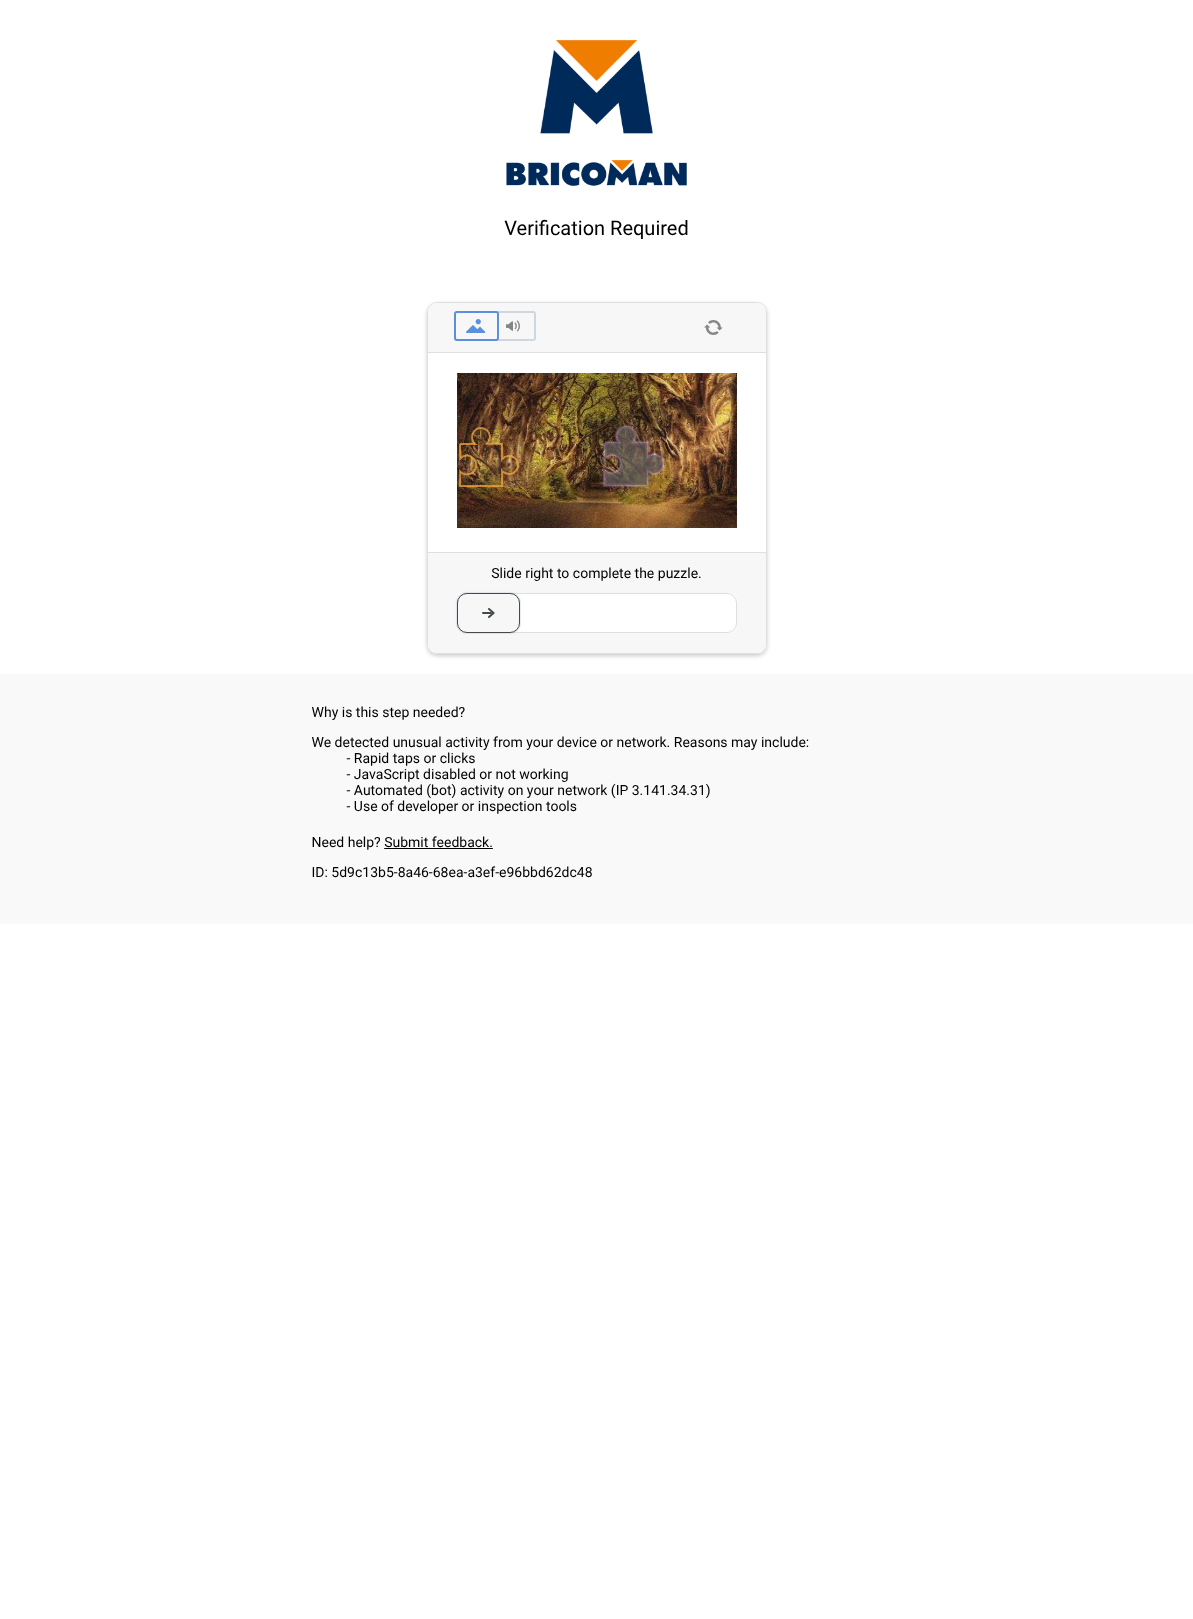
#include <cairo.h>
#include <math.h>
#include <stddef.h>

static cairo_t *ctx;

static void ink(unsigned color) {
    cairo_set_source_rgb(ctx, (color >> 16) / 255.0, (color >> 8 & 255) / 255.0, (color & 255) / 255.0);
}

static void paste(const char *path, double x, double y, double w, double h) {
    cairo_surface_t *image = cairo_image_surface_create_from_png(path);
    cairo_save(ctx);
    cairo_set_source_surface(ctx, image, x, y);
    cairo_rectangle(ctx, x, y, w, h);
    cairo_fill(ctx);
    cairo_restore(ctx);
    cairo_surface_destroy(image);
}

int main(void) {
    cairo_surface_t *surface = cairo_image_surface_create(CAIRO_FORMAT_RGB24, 1193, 1619);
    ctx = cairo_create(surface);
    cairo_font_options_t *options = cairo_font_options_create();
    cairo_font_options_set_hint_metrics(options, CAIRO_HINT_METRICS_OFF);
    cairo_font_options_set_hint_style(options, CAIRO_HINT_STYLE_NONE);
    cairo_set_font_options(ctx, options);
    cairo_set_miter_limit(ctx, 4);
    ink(0xffffff);
    cairo_paint(ctx);
    paste("pic1.png", 0, 39, 1193, 885);
    cairo_surface_write_to_png(surface, "screenshot.png");
    cairo_font_options_destroy(options);
    cairo_destroy(ctx);
    cairo_surface_destroy(surface);
    return 0;
}
